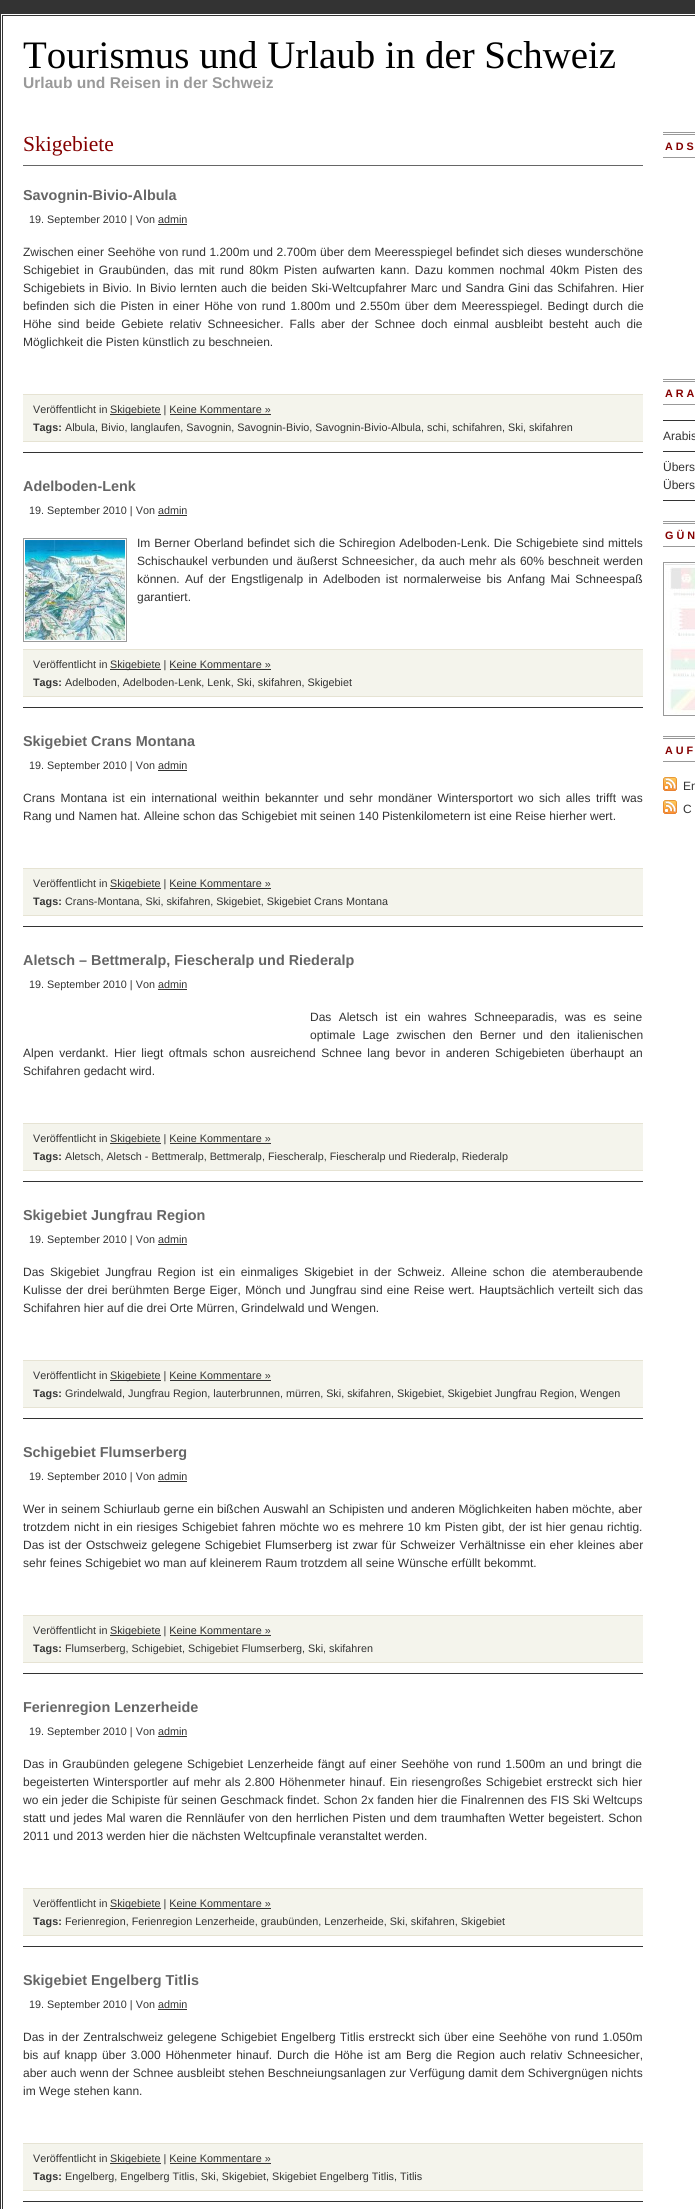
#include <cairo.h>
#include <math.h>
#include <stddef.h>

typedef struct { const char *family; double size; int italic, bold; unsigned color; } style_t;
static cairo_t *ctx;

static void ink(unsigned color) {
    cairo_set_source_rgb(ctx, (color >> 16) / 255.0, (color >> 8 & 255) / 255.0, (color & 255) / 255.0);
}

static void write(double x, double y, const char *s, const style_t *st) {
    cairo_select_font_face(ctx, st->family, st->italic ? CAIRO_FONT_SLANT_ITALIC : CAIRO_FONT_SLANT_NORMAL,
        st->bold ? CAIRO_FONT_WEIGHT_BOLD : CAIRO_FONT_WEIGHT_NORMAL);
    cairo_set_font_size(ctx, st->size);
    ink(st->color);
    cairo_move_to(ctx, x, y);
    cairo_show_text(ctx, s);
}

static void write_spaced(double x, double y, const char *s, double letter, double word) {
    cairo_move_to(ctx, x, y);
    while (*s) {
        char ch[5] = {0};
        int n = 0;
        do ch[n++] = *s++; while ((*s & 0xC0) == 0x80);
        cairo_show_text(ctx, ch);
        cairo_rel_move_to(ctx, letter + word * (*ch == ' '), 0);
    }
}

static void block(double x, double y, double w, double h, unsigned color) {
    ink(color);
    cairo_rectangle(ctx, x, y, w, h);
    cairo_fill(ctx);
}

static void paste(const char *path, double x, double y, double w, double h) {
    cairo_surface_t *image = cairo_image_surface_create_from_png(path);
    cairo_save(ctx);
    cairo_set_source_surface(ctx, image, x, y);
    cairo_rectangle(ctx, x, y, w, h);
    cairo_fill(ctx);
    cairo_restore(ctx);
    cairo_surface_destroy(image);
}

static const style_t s1 = {"Liberation Serif", 38.9, 0, 0, 0x000000};
static const style_t s2 = {"Liberation Sans", 15.6, 0, 1, 0x999999};
static const style_t s3 = {"Liberation Serif", 21.5, 0, 0, 0x840000};
static const style_t s4 = {"Liberation Sans", 14.4, 0, 1, 0x666666};
static const style_t s5 = {"Liberation Sans", 10.8, 0, 0, 0x333333};
static const style_t s6 = {"Liberation Sans", 12, 0, 0, 0x333333};
static const style_t s7 = {"Liberation Sans", 10.8, 0, 1, 0x333333};

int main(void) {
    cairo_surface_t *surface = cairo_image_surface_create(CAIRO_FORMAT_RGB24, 695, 2209);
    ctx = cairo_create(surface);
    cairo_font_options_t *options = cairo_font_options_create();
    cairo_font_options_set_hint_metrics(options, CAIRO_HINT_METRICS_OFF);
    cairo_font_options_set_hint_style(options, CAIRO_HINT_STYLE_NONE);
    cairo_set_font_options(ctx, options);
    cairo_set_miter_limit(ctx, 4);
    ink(0x333333);
    cairo_paint(ctx);
    block(1, 14, 694, 2195, 0xffffff);
    cairo_rectangle(ctx, 2.5, 15.5, 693, 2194);
    ink(0x333333);
    cairo_set_line_width(ctx, 1);
    cairo_stroke(ctx);
    write(23, 68, "Tourismus und Urlaub in der Schweiz", &s1);
    write(23, 88, "Urlaub und Reisen in der Schweiz", &s2);
    block(23, 165, 620, 1, 0x666666);
    write(23, 151, "Skigebiete", &s3);
    write(23, 200, "Savognin-Bivio-Albula", &s4);
    write(29, 223, "19. September 2010 | Von admin", &s5);
    block(158, 224, 29, 1, 0x333333);
    cairo_set_font_size(ctx, 12);
    write_spaced(23, 256, "Zwischen einer Seehöhe von rund 1.200m und 2.700m über dem Meeresspiegel befindet sich dieses wunderschöne", 0, 0.2);
    write_spaced(23, 274, "Schigebiet in Graubünden, das mit rund 80km Pisten aufwarten kann. Dazu kommen nochmal 40km Pisten des", 0, 1.9);
    write_spaced(23, 292, "Schigebiets in Bivio. In Bivio lernten auch die beiden Ski-Weltcupfahrer Marc und Sandra Gini das Schifahren. Hier", 0, 0.75);
    write_spaced(23, 310, "befinden sich die Pisten in einer Höhe von rund 1.800m und 2.550m über dem Meeresspiegel. Bedingt durch die", 0, 1.4);
    write_spaced(23, 328, "Höhe sind beide Gebiete relativ Schneesicher. Falls aber der Schnee doch einmal ausbleibt besteht auch die", 0, 2.75);
    write(23, 346, "Möglichkeit die Pisten künstlich zu beschneien.", &s6);
    block(23, 395, 620, 46, 0xf4f4ec);
    block(23, 394, 620, 1, 0xe6e3d3);
    block(23, 441, 620, 1, 0xe6e3d3);
    write(33, 413, "Veröffentlicht in", &s5);
    block(110, 414, 51, 1, 0x333333);
    write(110, 413, "Skigebiete | Keine Kommentare »", &s5);
    block(170, 414, 101, 1, 0x333333);
    write(33, 431, "Tags:", &s7);
    write(65, 431, "Albula, Bivio, langlaufen, Savognin, Savognin-Bivio, Savognin-Bivio-Albula, schi, schifahren, Ski, skifahren", &s5);
    block(23, 452, 620, 1, 0x333333);
    write(23, 491, "Adelboden-Lenk", &s4);
    write(29, 514, "19. September 2010 | Von admin", &s5);
    block(158, 515, 29, 1, 0x333333);
    cairo_rectangle(ctx, 23.5, 538.5, 103, 103);
    ink(0x999999);
    cairo_stroke(ctx);
    paste("pic1.png", 25, 540, 100, 100);
    cairo_set_font_size(ctx, 12);
    ink(0x333333);
    write_spaced(137, 547, "Im Berner Oberland befindet sich die Schiregion Adelboden-Lenk. Die Schigebiete sind mittels", 0, 0.5);
    write_spaced(137, 565, "Schischaukel verbunden und äußerst Schneesicher, da auch mehr als 60% beschneit werden", 0, 0.75);
    write_spaced(137, 583, "können. Auf der Engstligenalp in Adelboden ist normalerweise bis Anfang Mai Schneespaß", 0, 2);
    write(137, 601, "garantiert.", &s6);
    block(23, 650, 620, 46, 0xf4f4ec);
    block(23, 649, 620, 1, 0xe6e3d3);
    block(23, 696, 620, 1, 0xe6e3d3);
    write(33, 668, "Veröffentlicht in", &s5);
    block(110, 669, 51, 1, 0x333333);
    write(110, 668, "Skigebiete | Keine Kommentare »", &s5);
    block(170, 669, 101, 1, 0x333333);
    write(33, 686, "Tags:", &s7);
    write(65, 686, "Adelboden, Adelboden-Lenk, Lenk, Ski, skifahren, Skigebiet", &s5);
    block(23, 707, 620, 1, 0x333333);
    write(23, 746, "Skigebiet Crans Montana", &s4);
    write(29, 769, "19. September 2010 | Von admin", &s5);
    block(158, 770, 29, 1, 0x333333);
    cairo_set_font_size(ctx, 12);
    write_spaced(23, 802, "Crans Montana ist ein international weithin bekannter und sehr mondäner Wintersportort wo sich alles trifft was", 0, 2.1);
    write(23, 820, "Rang und Namen hat. Alleine schon das Schigebiet mit seinen 140 Pistenkilometern ist eine Reise hierher wert.", &s6);
    block(23, 869, 620, 46, 0xf4f4ec);
    block(23, 868, 620, 1, 0xe6e3d3);
    block(23, 915, 620, 1, 0xe6e3d3);
    write(33, 887, "Veröffentlicht in", &s5);
    block(110, 888, 51, 1, 0x333333);
    write(110, 887, "Skigebiete | Keine Kommentare »", &s5);
    block(170, 888, 101, 1, 0x333333);
    write(33, 905, "Tags:", &s7);
    write(65, 905, "Crans-Montana, Ski, skifahren, Skigebiet, Skigebiet Crans Montana", &s5);
    block(23, 926, 620, 1, 0x333333);
    write(23, 965, "Aletsch – Bettmeralp, Fiescheralp und Riederalp", &s4);
    write(29, 988, "19. September 2010 | Von admin", &s5);
    block(158, 989, 29, 1, 0x333333);
    cairo_set_font_size(ctx, 12);
    write_spaced(310, 1021, "Das Aletsch ist ein wahres Schneeparadis, was es seine", 0, 4);
    write_spaced(310, 1039, "optimale Lage zwischen den Berner und den italienischen", 0, 3.75);
    write_spaced(23, 1057, "Alpen verdankt. Hier liegt oftmals schon ausreichend Schnee lang bevor in anderen Schigebieten überhaupt an", 0, 2.1);
    write(23, 1075, "Schifahren gedacht wird.", &s6);
    block(23, 1124, 620, 46, 0xf4f4ec);
    block(23, 1123, 620, 1, 0xe6e3d3);
    block(23, 1170, 620, 1, 0xe6e3d3);
    write(33, 1142, "Veröffentlicht in", &s5);
    block(110, 1143, 51, 1, 0x333333);
    write(110, 1142, "Skigebiete | Keine Kommentare »", &s5);
    block(170, 1143, 101, 1, 0x333333);
    write(33, 1160, "Tags:", &s7);
    write(65, 1160, "Aletsch, Aletsch - Bettmeralp, Bettmeralp, Fiescheralp, Fiescheralp und Riederalp, Riederalp", &s5);
    block(23, 1181, 620, 1, 0x333333);
    write(23, 1220, "Skigebiet Jungfrau Region", &s4);
    write(29, 1243, "19. September 2010 | Von admin", &s5);
    block(158, 1244, 29, 1, 0x333333);
    cairo_set_font_size(ctx, 12);
    write_spaced(23, 1276, "Das Skigebiet Jungfrau Region ist ein einmaliges Skigebiet in der Schweiz. Alleine schon die atemberaubende", 0, 2.4);
    write_spaced(23, 1294, "Kulisse der drei berühmten Berge Eiger, Mönch und Jungfrau sind eine Reise wert. Hauptsächlich verteilt sich das", 0, 0.9);
    write(23, 1312, "Schifahren hier auf die drei Orte Mürren, Grindelwald und Wengen.", &s6);
    block(23, 1361, 620, 46, 0xf4f4ec);
    block(23, 1360, 620, 1, 0xe6e3d3);
    block(23, 1407, 620, 1, 0xe6e3d3);
    write(33, 1379, "Veröffentlicht in", &s5);
    block(110, 1380, 51, 1, 0x333333);
    write(110, 1379, "Skigebiete | Keine Kommentare »", &s5);
    block(170, 1380, 101, 1, 0x333333);
    write(33, 1397, "Tags:", &s7);
    write(65, 1397, "Grindelwald, Jungfrau Region, lauterbrunnen, mürren, Ski, skifahren, Skigebiet, Skigebiet Jungfrau Region, Wengen", &s5);
    block(23, 1418, 620, 1, 0x333333);
    write(23, 1457, "Schigebiet Flumserberg", &s4);
    write(29, 1480, "19. September 2010 | Von admin", &s5);
    block(158, 1481, 29, 1, 0x333333);
    cairo_set_font_size(ctx, 12);
    write_spaced(23, 1513, "Wer in seinem Schiurlaub gerne ein bißchen Auswahl an Schipisten und anderen Möglichkeiten haben möchte, aber", 0, 0.1);
    write(23, 1531, "trotzdem", &s6);
    write_spaced(74, 1531, "nicht in ein riesiges Schigebiet fahren möchte wo es mehrere 10 km Pisten gibt, der ist hier genau richtig.", 0, 0.6);
    write_spaced(23, 1549, "Das ist der Ostschweiz gelegene Schigebiet Flumserberg ist zwar für Schweizer Verhältnisse ein eher kleines aber", 0, 0.75);
    write(23, 1567, "sehr feines Schigebiet wo man auf kleinerem Raum trotzdem all seine Wünsche erfüllt bekommt.", &s6);
    block(23, 1616, 620, 46, 0xf4f4ec);
    block(23, 1615, 620, 1, 0xe6e3d3);
    block(23, 1662, 620, 1, 0xe6e3d3);
    write(33, 1634, "Veröffentlicht in", &s5);
    block(110, 1635, 51, 1, 0x333333);
    write(110, 1634, "Skigebiete | Keine Kommentare »", &s5);
    block(170, 1635, 101, 1, 0x333333);
    write(33, 1652, "Tags:", &s7);
    write(65, 1652, "Flumserberg, Schigebiet, Schigebiet Flumserberg, Ski, skifahren", &s5);
    block(23, 1673, 620, 1, 0x333333);
    write(23, 1712, "Ferienregion Lenzerheide", &s4);
    write(29, 1735, "19. September 2010 | Von admin", &s5);
    block(158, 1736, 29, 1, 0x333333);
    cairo_set_font_size(ctx, 12);
    write_spaced(23, 1768, "Das in Graubünden gelegene Schigebiet Lenzerheide fängt auf einer Seehöhe von rund 1.500m an und bringt die", 0, 1);
    write_spaced(23, 1786, "begeisterten Wintersportler auf mehr als 2.800 Höhenmeter hinauf. Ein riesengroßes Schigebiet erstreckt sich hier", 0, 1);
    write_spaced(23, 1804, "wo ein jeder die Schipiste für seinen Geschmack findet. Schon 2x fanden hier die Finalrennen des FIS Ski Weltcups", 0, 0.25);
    write_spaced(23, 1822, "statt und jedes Mal waren die Rennläufer von den herrlichen Pisten und dem traumhaften Wetter begeistert. Schon", 0, 0.6);
    write(23, 1840, "2011 und 2013 werden hier die nächsten Weltcupfinale veranstaltet werden.", &s6);
    block(23, 1889, 620, 46, 0xf4f4ec);
    block(23, 1888, 620, 1, 0xe6e3d3);
    block(23, 1935, 620, 1, 0xe6e3d3);
    write(33, 1907, "Veröffentlicht in", &s5);
    block(110, 1908, 51, 1, 0x333333);
    write(110, 1907, "Skigebiete | Keine Kommentare »", &s5);
    block(170, 1908, 101, 1, 0x333333);
    write(33, 1925, "Tags:", &s7);
    write(65, 1925, "Ferienregion, Ferienregion Lenzerheide, graubünden, Lenzerheide, Ski, skifahren, Skigebiet", &s5);
    block(23, 1946, 620, 1, 0x333333);
    write(23, 1985, "Skigebiet Engelberg Titlis", &s4);
    write(29, 2008, "19. September 2010 | Von admin", &s5);
    block(158, 2009, 29, 1, 0x333333);
    cairo_set_font_size(ctx, 12);
    write_spaced(23, 2041, "Das in der Zentralschweiz gelegene Schigebiet Engelberg Titlis erstreckt sich über eine Seehöhe von rund 1.050m", 0, 0.75);
    write_spaced(23, 2059, "bis auf knapp über 3.000 Höhenmeter hinauf. Durch die Höhe ist am Berg die Region auch relativ Schneesicher,", 0, 1.4);
    write_spaced(23, 2077, "aber auch wenn der Schnee ausbleibt stehen Beschneiungsanlagen zur Verfügung damit dem Schivergnügen nichts", 0, 0.1);
    write(23, 2095, "im Wege stehen kann.", &s6);
    block(23, 2144, 620, 46, 0xf4f4ec);
    block(23, 2143, 620, 1, 0xe6e3d3);
    block(23, 2190, 620, 1, 0xe6e3d3);
    write(33, 2162, "Veröffentlicht in", &s5);
    block(110, 2163, 51, 1, 0x333333);
    write(110, 2162, "Skigebiete | Keine Kommentare »", &s5);
    block(170, 2163, 101, 1, 0x333333);
    write(33, 2180, "Tags:", &s7);
    write(65, 2180, "Engelberg, Engelberg Titlis, Ski, Skigebiet, Skigebiet Engelberg Titlis, Titlis", &s5);
    block(23, 2201, 620, 1, 0x333333);
    block(663, 132, 32, 1, 0x999999);
    block(663, 134, 32, 1, 0x999999);
    block(663, 157, 32, 1, 0x999999);
    cairo_select_font_face(ctx, "Liberation Sans", CAIRO_FONT_SLANT_NORMAL, CAIRO_FONT_WEIGHT_BOLD);
    ink(0x840000);
    write_spaced(665, 150, "ADS", 3, 0);
    block(663, 379, 32, 1, 0x999999);
    block(663, 381, 32, 1, 0x999999);
    block(663, 404, 32, 1, 0x999999);
    ink(0x840000);
    write_spaced(665, 397, "ARA", 3, 0);
    block(663, 420, 32, 1, 0x333333);
    write(663, 440, "Arabis", &s6);
    block(663, 451, 32, 1, 0x333333);
    write(663, 471, "Übers", &s6);
    write(663, 489, "Übers", &s6);
    block(663, 500, 32, 1, 0x333333);
    block(663, 521, 32, 1, 0x999999);
    block(663, 523, 32, 1, 0x999999);
    block(663, 546, 32, 1, 0x999999);
    cairo_select_font_face(ctx, "Liberation Sans", CAIRO_FONT_SLANT_NORMAL, CAIRO_FONT_WEIGHT_BOLD);
    cairo_set_font_size(ctx, 10.8);
    ink(0x840000);
    write_spaced(665, 539, "GÜN", 3, 0);
    cairo_rectangle(ctx, 663.5, 562.5, 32, 153);
    ink(0x999999);
    cairo_stroke(ctx);
    paste("pic2.png", 665, 564, 30, 150);
    block(663, 736, 32, 1, 0x999999);
    block(663, 738, 32, 1, 0x999999);
    block(663, 761, 32, 1, 0x999999);
    ink(0x840000);
    write_spaced(665, 754, "AUF", 3, 0);
    paste("pic3.png", 663, 777, 14, 14);
    write(683, 790, "En", &s6);
    paste("pic3.png", 663, 800, 14, 14);
    write(683, 813, "C", &s6);
    cairo_surface_write_to_png(surface, "screenshot.png");
    cairo_font_options_destroy(options);
    cairo_destroy(ctx);
    cairo_surface_destroy(surface);
    return 0;
}
